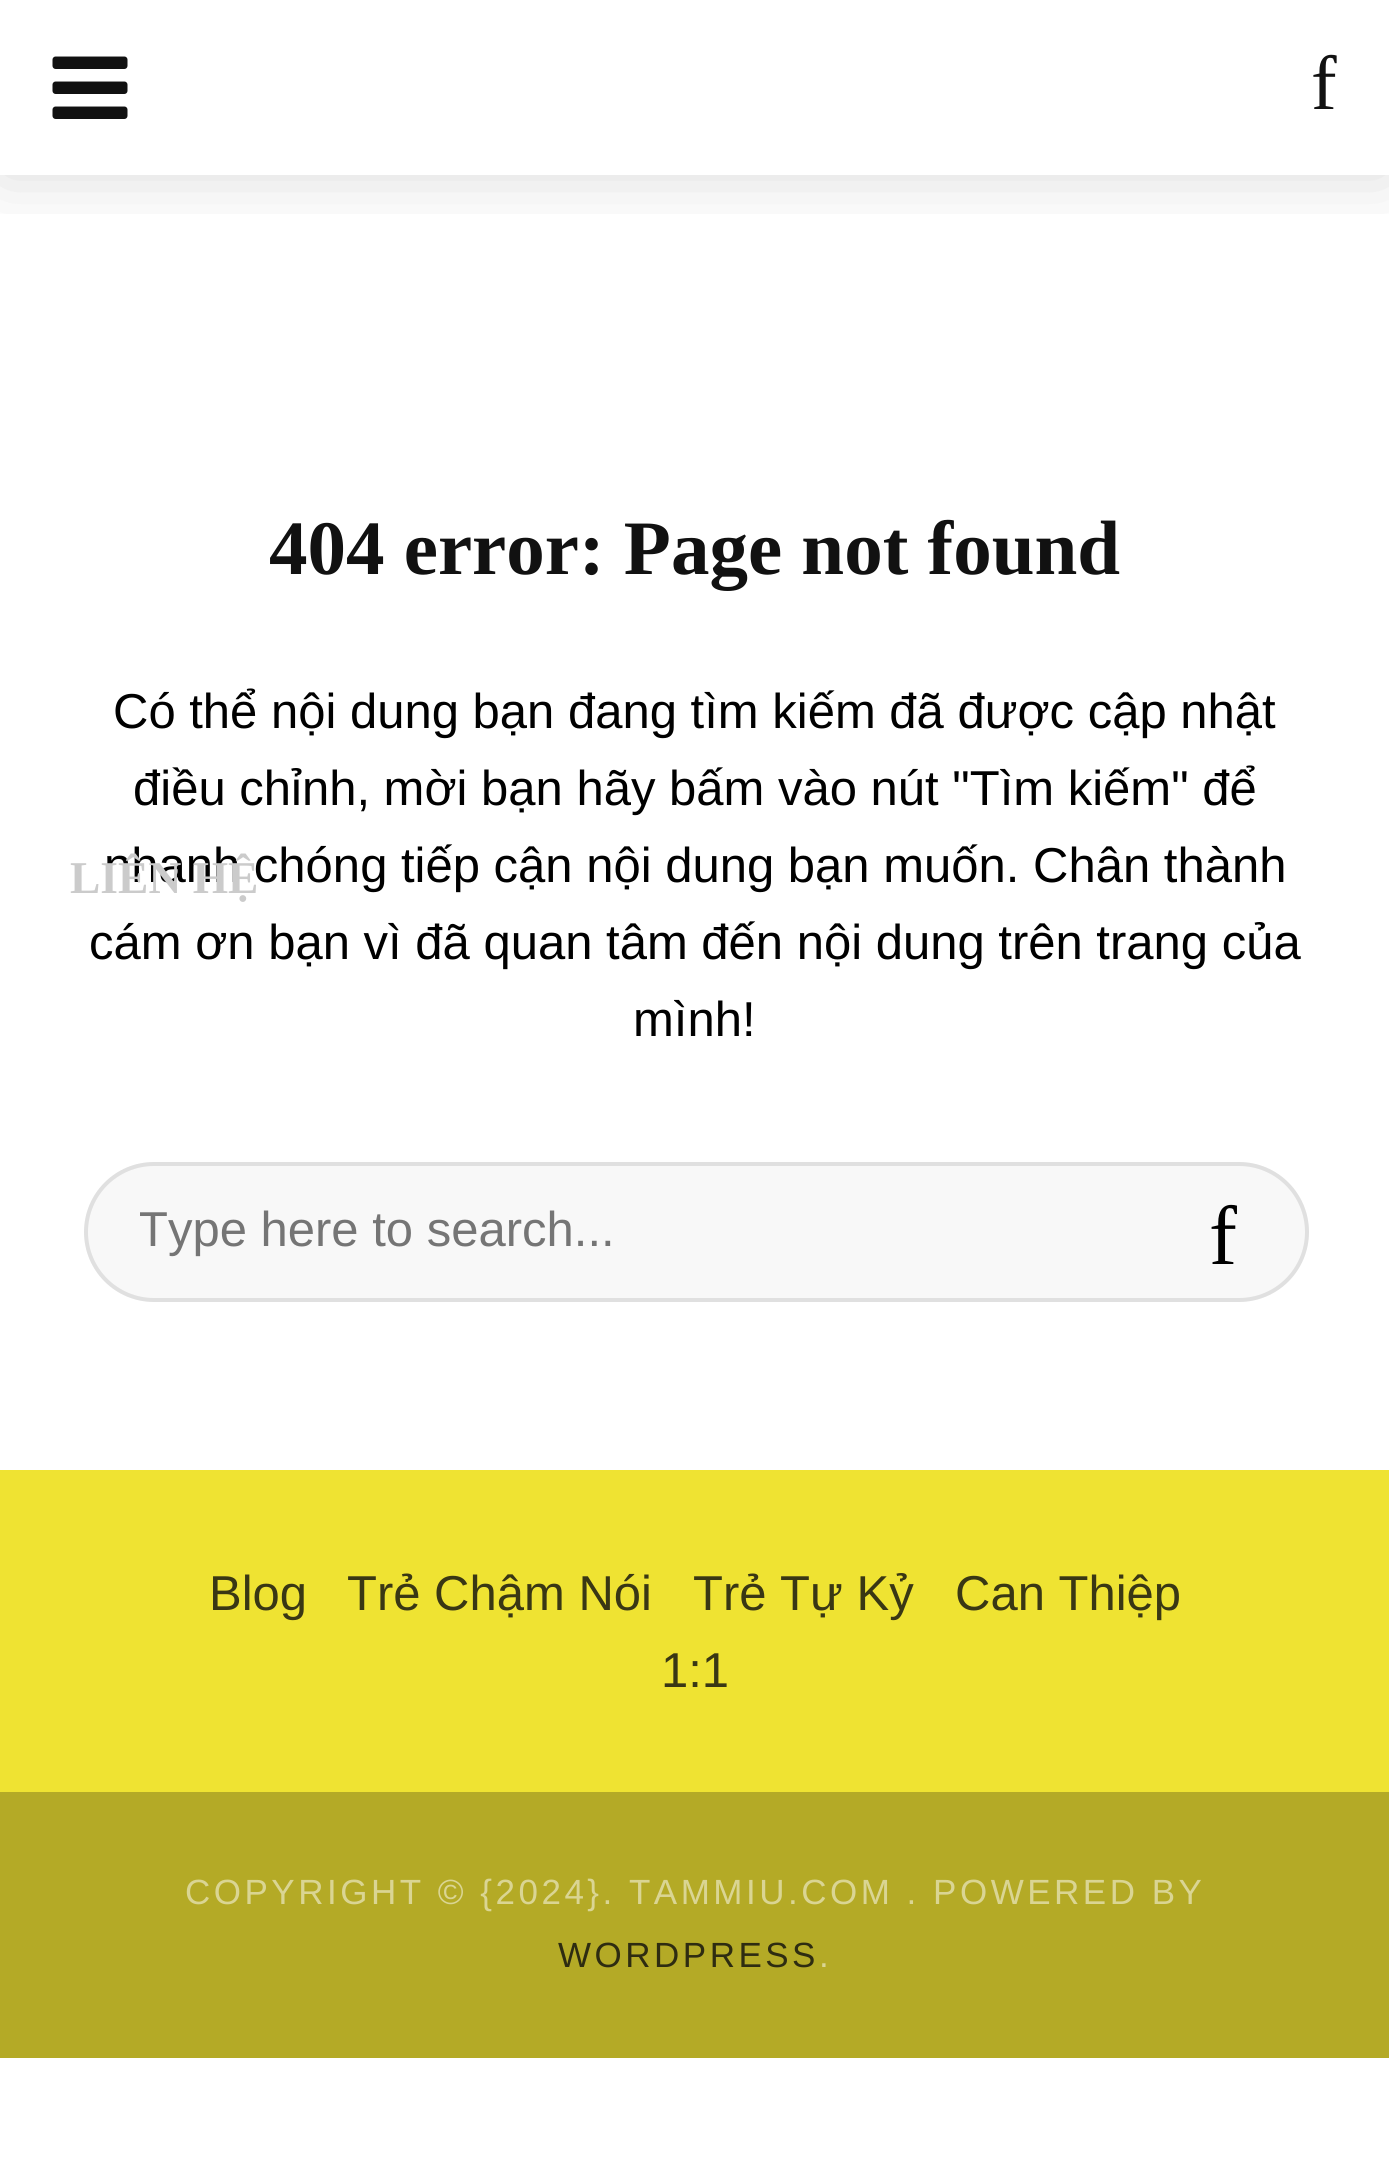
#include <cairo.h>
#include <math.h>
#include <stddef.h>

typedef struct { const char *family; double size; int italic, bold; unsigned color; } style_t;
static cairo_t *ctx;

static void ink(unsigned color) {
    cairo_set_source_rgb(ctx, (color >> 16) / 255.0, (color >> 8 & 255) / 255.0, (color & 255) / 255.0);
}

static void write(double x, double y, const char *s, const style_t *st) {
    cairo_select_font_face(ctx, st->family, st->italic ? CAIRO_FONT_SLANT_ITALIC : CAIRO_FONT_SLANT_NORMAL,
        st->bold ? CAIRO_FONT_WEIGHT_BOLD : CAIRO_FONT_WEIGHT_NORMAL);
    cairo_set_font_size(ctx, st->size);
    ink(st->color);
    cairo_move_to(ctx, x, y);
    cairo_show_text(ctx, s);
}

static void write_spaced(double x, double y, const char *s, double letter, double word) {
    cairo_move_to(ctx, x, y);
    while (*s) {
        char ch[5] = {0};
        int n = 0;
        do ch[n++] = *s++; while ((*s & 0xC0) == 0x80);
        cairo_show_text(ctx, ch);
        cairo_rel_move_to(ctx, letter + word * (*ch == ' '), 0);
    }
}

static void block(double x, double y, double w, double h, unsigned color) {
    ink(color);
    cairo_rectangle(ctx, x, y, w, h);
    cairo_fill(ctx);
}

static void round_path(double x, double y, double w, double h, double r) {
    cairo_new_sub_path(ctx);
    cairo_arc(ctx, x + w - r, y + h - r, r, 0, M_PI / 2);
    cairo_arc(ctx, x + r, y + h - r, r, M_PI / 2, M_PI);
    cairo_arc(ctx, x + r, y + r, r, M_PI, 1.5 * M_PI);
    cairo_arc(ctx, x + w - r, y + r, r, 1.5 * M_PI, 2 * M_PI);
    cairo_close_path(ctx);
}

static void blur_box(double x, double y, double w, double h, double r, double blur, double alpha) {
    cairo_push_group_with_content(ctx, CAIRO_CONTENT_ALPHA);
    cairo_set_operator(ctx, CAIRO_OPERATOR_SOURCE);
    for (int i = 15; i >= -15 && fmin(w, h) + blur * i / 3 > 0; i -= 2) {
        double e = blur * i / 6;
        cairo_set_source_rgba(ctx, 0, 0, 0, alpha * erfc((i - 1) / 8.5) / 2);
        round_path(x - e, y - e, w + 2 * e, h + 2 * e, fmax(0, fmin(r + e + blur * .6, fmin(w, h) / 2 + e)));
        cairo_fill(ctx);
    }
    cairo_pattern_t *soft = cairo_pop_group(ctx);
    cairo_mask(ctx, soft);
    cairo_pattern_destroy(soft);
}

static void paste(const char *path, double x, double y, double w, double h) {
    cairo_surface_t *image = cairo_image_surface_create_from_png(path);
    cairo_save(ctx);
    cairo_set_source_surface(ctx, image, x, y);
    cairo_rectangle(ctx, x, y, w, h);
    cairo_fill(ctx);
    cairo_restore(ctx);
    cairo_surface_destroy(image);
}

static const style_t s1 = {"Liberation Serif", 77, 0, 0, 0x111111};
static const style_t s2 = {"Liberation Sans", 49, 0, 0, 0x000000};
static const style_t s3 = {"Liberation Serif", 45.5, 0, 1, 0xcbcbcb};
static const style_t s4 = {"Liberation Serif", 77, 0, 1, 0x111111};
static const style_t s5 = {"Liberation Sans", 49, 0, 0, 0x757575};
static const style_t s6 = {"Liberation Serif", 84, 0, 0, 0x000000};
static const style_t s7 = {"Liberation Sans", 49, 0, 0, 0x393714};

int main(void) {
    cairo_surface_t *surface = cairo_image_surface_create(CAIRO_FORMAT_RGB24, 1389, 2184);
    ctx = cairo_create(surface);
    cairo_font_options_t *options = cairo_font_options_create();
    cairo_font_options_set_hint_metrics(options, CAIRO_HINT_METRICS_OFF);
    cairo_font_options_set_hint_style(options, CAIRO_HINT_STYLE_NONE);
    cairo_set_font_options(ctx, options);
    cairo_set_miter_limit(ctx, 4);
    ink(0xffffff);
    cairo_paint(ctx);
    cairo_save(ctx);
    cairo_rectangle(ctx, 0, 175, 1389, 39);
    cairo_clip(ctx);
    ink(0x000000);
    blur_box(0, 0, 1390, 175, 0, 35, 0.15);
    cairo_restore(ctx);
    write(1311, 109, "f", &s1);
    paste("pic1.png", 52, 56, 76, 63);
    write(104, 882, "nhanh chóng tiếp cận nội dung bạn muốn. Chân thành", &s2);
    write(70, 893, "LIÊN HỆ", &s3);
    write(269, 574, "404 error: Page not found", &s4);
    write(113, 728, "Có thể nội dung bạn đang tìm kiếm đã được cập nhật", &s2);
    write(133, 805, "điều chỉnh, mời bạn hãy bấm vào nút \"Tìm kiếm\" để", &s2);
    write(89, 959, "cám ơn bạn vì đã quan tâm đến nội dung trên trang của", &s2);
    write(633, 1036, "mình!", &s2);
    ink(0xf8f8f8);
    round_path(84, 1162, 1225, 140, 70);
    cairo_fill(ctx);
    round_path(86, 1164, 1221, 136, 68);
    cairo_set_source_rgba(ctx, 0, 0, 0, 0.1);
    cairo_set_line_width(ctx, 4);
    cairo_stroke(ctx);
    cairo_save(ctx);
    cairo_rectangle(ctx, 140, 1201, 1026, 56);
    cairo_clip(ctx);
    write(138, 1246, "Type here to search...", &s5);
    cairo_restore(ctx);
    write(1209, 1264, "f", &s6);
    block(0, 1470, 1389, 322, 0xefe332);
    write(209, 1610, "Blog", &s7);
    write(347, 1610, "Trẻ Chậm Nói", &s7);
    write(693, 1610, "Trẻ Tự Kỷ", &s7);
    write(955, 1610, "Can Thiệp", &s7);
    write(661, 1687, "1:1", &s7);
    block(0, 1792, 1389, 266, 0xb4aa26);
    cairo_set_font_size(ctx, 35);
    ink(0xdad593);
    write_spaced(185, 1904, "COPYRIGHT © {2024}. TAMMIU.COM . POWERED BY", 3.5, 0);
    ink(0x2e2c11);
    write_spaced(558, 1967, "WORDPRESS", 3.5, 0);
    ink(0xdad593);
    write_spaced(819, 1967, ".", 3.5, 0);
    cairo_surface_write_to_png(surface, "screenshot.png");
    cairo_font_options_destroy(options);
    cairo_destroy(ctx);
    cairo_surface_destroy(surface);
    return 0;
}
